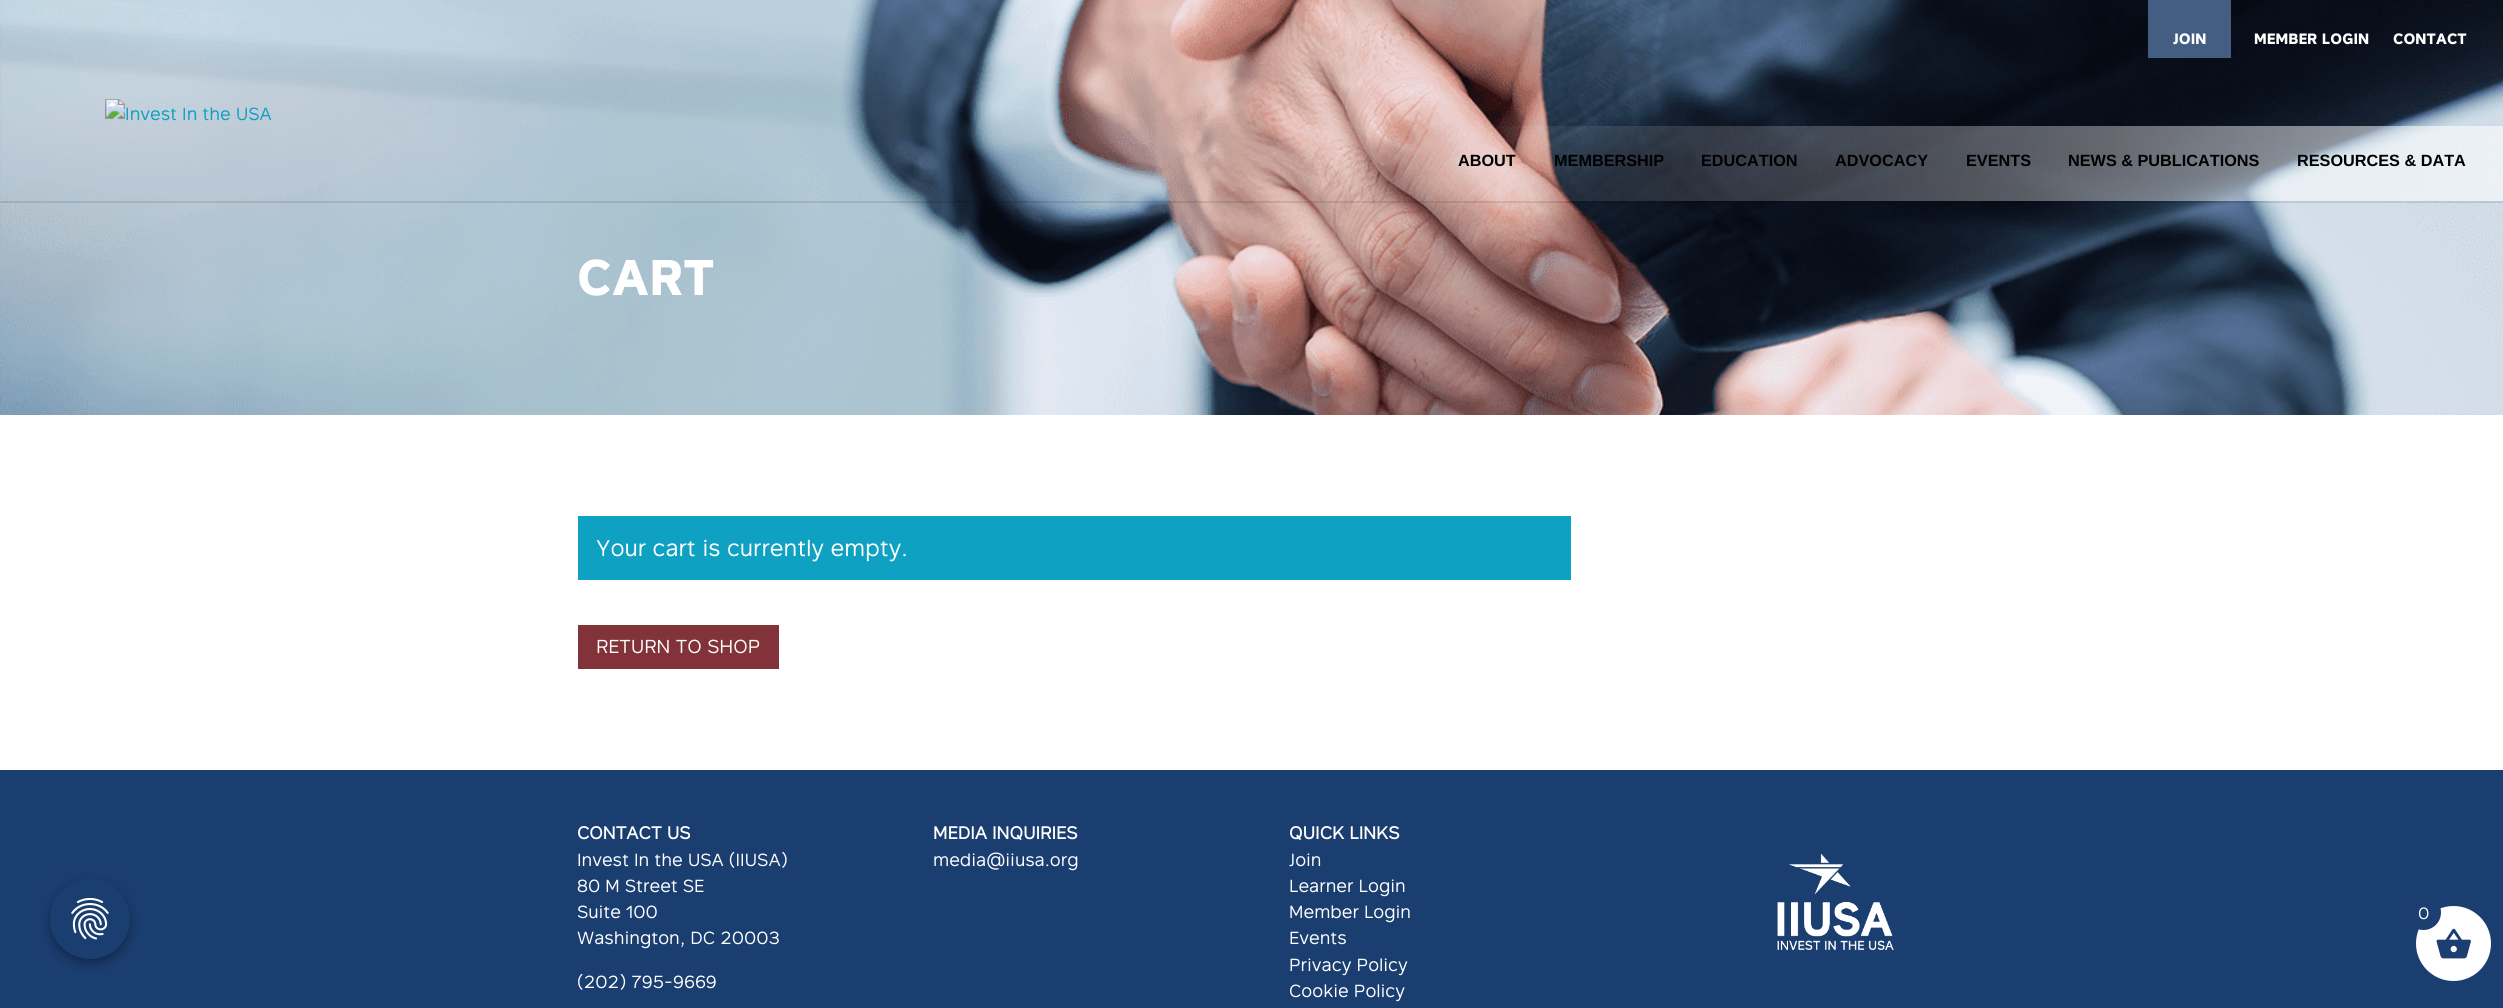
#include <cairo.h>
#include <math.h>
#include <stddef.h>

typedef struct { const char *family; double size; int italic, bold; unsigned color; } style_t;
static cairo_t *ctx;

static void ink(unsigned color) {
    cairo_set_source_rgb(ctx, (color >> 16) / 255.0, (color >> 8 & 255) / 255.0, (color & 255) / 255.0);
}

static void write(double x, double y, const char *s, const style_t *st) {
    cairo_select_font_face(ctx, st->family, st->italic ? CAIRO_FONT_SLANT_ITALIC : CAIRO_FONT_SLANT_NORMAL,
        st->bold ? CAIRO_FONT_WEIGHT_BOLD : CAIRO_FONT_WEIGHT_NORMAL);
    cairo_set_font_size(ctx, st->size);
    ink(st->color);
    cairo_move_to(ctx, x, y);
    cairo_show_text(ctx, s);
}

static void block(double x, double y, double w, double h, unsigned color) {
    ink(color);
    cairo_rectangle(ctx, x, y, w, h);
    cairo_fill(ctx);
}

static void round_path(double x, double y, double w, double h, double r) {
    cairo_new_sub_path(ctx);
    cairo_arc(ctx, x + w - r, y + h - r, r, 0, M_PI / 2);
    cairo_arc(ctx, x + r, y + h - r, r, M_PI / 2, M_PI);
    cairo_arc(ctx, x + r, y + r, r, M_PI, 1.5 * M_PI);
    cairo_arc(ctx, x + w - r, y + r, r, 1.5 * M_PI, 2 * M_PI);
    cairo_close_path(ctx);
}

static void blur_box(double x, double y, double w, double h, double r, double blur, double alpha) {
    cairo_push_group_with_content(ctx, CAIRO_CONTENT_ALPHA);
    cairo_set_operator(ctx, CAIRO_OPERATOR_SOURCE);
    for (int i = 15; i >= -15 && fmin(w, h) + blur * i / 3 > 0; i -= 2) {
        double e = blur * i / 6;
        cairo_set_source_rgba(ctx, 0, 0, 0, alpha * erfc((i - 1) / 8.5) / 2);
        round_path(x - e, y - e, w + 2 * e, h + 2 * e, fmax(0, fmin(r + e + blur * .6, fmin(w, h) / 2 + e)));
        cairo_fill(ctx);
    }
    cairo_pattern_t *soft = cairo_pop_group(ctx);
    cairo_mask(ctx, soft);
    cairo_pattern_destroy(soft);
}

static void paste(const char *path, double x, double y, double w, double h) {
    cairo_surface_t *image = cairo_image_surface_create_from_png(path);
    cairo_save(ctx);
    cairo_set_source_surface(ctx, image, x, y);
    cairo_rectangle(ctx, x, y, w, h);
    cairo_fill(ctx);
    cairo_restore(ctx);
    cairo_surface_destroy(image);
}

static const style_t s1 = {"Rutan", 15, 0, 1, 0xffffff};
static const style_t s2 = {"Liberation Sans", 16.25, 0, 1, 0x000000};
static const style_t s3 = {"Rutan", 50, 0, 1, 0xffffff};
static const style_t s4 = {"Rutan", 22.5, 0, 0, 0xffffff};
static const style_t s5 = {"Rutan", 18.75, 0, 0, 0xffffff};
static const style_t s6 = {"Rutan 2", 17.5, 0, 1, 0xffffff};
static const style_t s7 = {"Rutan", 17.5, 0, 0, 0xffffff};
static const style_t s8 = {"Rutan", 16.25, 0, 0, 0xffffff};

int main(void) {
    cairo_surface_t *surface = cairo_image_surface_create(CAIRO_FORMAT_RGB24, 2503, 1008);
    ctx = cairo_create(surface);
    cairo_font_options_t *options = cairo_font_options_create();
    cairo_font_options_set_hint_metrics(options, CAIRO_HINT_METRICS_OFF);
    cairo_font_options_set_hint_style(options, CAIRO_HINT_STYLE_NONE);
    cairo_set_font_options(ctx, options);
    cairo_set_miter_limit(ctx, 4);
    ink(0xffffff);
    cairo_paint(ctx);
    block(0, 770, 2503, 238, 0x1b3e71);
    ink(0x000000);
    blur_box(50, 880, 80, 80, 40, 11, 0.12);
    blur_box(50, 886, 80, 80, 40, 6, 0.14);
    blur_box(51, 884, 78, 77, 38.5, 3, 0.2);
    ink(0x1b3e70);
    cairo_arc(ctx, 90, 919, 40, 0, 2 * M_PI);
    cairo_fill(ctx);
    paste("pic1.png", 71, 897, 38, 43);
    paste("pic3.png", 0, 0, 2503, 415);
    block(2148, 0, 83, 58, 0x435d83);
    write(2173, 44, "JOIN", &s1);
    write(2254, 44, "MEMBER LOGIN", &s1);
    write(2393, 44, "CONTACT", &s1);
    cairo_set_source_rgba(ctx, 0, 0, 0, 0.1);
    cairo_new_path(ctx);
    cairo_move_to(ctx, 0, 201);
    cairo_line_to(ctx, 0, 203);
    cairo_line_to(ctx, 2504, 203);
    cairo_line_to(ctx, 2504, 64);
    cairo_line_to(ctx, 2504, 201);
    cairo_close_path(ctx);
    cairo_fill(ctx);
    paste("pic2.png", 105, 99, 167, 22);
    write(1458, 166, "ABOUT", &s2);
    write(1554, 166, "MEMBERSHIP", &s2);
    write(1701, 166, "EDUCATION", &s2);
    write(1835, 166, "ADVOCACY", &s2);
    write(1966, 166, "EVENTS", &s2);
    write(2068, 166, "NEWS & PUBLICATIONS", &s2);
    write(2297, 166, "RESOURCES & DATA", &s2);
    write(577, 295, "CART", &s3);
    block(578, 516, 993, 64, 0x0fa1c1);
    write(596, 556, "Your cart is currently empty.", &s4);
    block(578, 625, 201, 44, 0x823339);
    write(596, 653, "RETURN TO SHOP", &s5);
    write(577, 839, "CONTACT US", &s6);
    write(577, 866, "Invest In the USA (IIUSA)", &s7);
    write(577, 892, "80 M Street SE", &s7);
    write(577, 918, "Suite 100", &s7);
    write(577, 944, "Washington, DC 20003", &s7);
    write(577, 988, "(202) 795-9669", &s7);
    write(933, 839, "MEDIA INQUIRIES", &s6);
    write(933, 866, "media@iiusa.org", &s7);
    write(1289, 839, "QUICK LINKS", &s6);
    write(1289, 866, "Join", &s7);
    write(1289, 892, "Learner Login", &s7);
    write(1289, 918, "Member Login", &s7);
    write(1289, 944, "Events", &s7);
    write(1289, 971, "Privacy Policy", &s7);
    write(1289, 997, "Cookie Policy", &s7);
    paste("pic4.png", 1777, 853, 117, 98);
    cairo_arc(ctx, 2453.5, 943.5, 37.5, 0, 2 * M_PI);
    cairo_fill(ctx);
    paste("pic5.png", 2436, 928, 35, 31);
    ink(0x1c3e71);
    cairo_arc(ctx, 2423.5, 912.5, 17.5, 0, 2 * M_PI);
    cairo_fill(ctx);
    write(2418, 919, "0", &s8);
    cairo_surface_write_to_png(surface, "screenshot.png");
    cairo_font_options_destroy(options);
    cairo_destroy(ctx);
    cairo_surface_destroy(surface);
    return 0;
}
